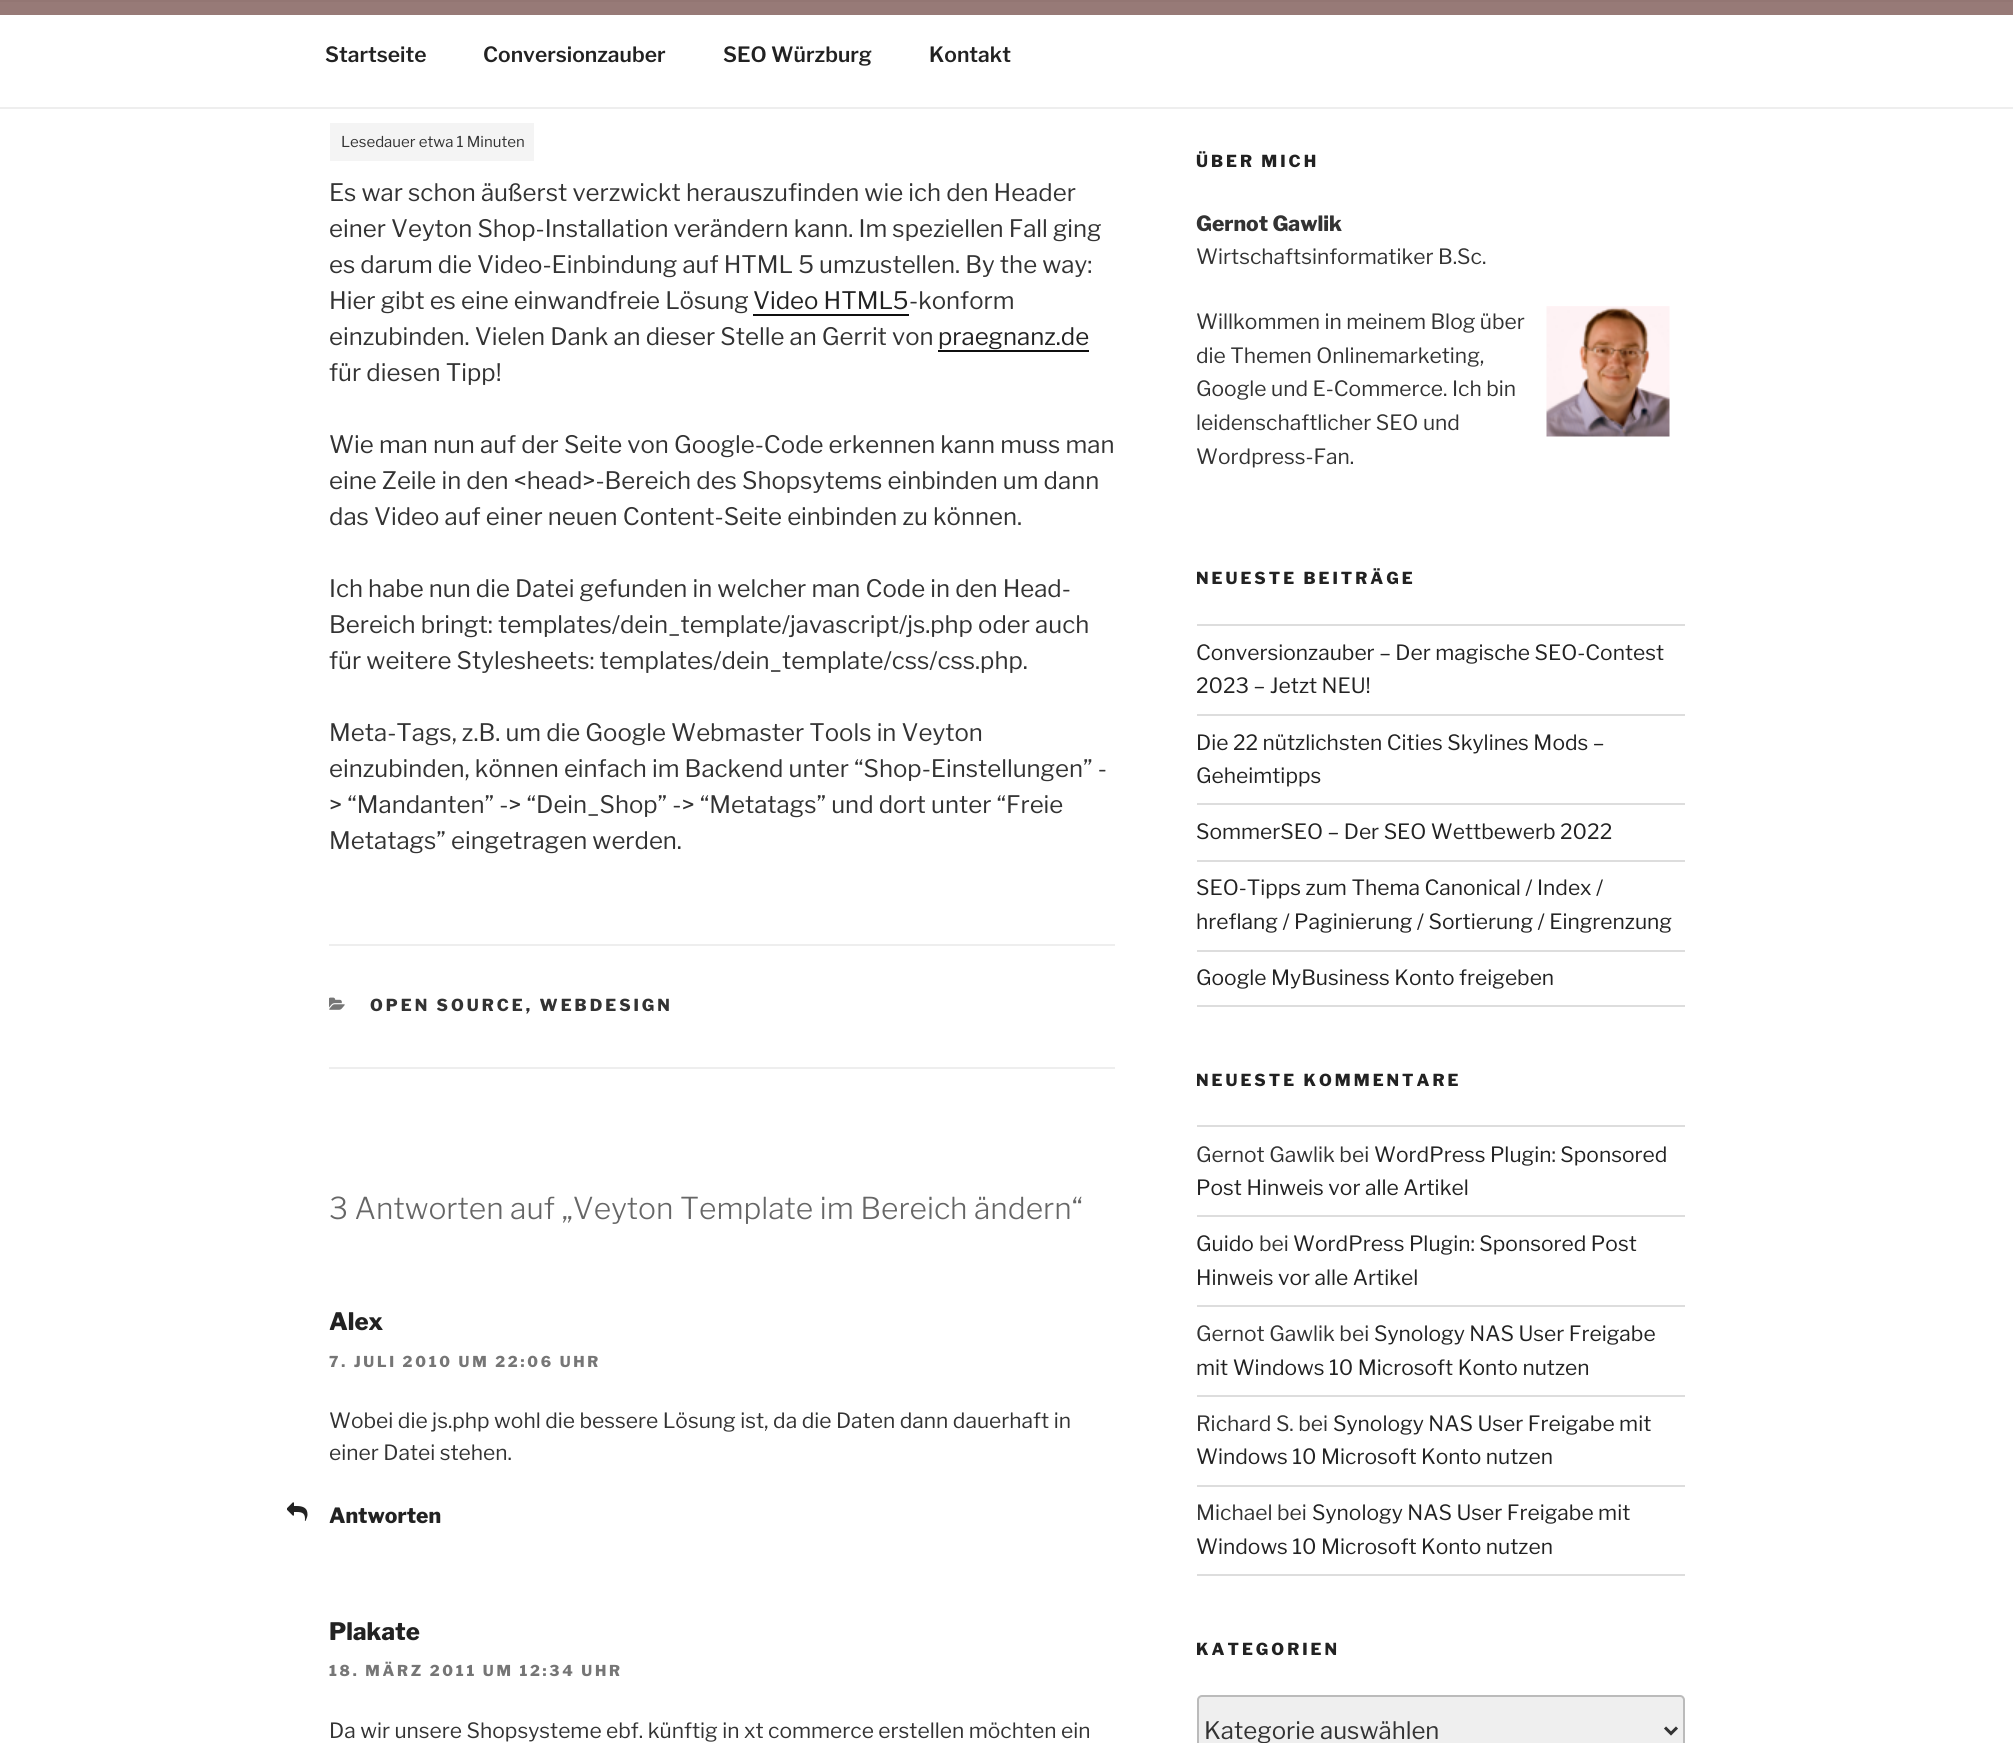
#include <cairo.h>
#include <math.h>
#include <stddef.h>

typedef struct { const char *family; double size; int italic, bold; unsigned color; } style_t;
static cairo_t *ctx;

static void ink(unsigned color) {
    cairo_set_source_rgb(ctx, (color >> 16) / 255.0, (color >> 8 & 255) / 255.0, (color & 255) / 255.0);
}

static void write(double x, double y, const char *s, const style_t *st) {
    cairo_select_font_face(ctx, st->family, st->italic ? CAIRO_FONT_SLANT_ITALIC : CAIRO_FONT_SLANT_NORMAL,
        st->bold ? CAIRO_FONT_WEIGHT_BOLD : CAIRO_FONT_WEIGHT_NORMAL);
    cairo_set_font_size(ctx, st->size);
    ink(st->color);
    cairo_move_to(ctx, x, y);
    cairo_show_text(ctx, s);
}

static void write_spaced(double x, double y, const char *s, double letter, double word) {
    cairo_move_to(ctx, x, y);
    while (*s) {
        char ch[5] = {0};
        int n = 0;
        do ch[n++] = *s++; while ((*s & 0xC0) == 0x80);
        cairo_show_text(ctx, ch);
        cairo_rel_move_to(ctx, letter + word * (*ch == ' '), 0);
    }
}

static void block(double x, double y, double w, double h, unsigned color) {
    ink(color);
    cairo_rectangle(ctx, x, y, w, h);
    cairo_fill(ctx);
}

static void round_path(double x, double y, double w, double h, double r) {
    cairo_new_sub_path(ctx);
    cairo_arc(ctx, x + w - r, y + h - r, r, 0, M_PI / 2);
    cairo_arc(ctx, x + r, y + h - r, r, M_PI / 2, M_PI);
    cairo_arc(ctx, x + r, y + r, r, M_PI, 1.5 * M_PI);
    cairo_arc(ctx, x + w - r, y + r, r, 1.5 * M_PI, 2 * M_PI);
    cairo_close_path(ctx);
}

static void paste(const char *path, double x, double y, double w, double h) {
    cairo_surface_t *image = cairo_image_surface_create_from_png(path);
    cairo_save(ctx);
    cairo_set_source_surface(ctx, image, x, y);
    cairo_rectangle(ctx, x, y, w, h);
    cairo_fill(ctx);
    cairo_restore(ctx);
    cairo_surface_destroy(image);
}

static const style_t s1 = {"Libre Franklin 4 Thin", 21, 0, 0, 0x222222};
static const style_t s2 = {"Libre Franklin Thin", 15, 0, 0, 0x333333};
static const style_t s3 = {"Libre Franklin Thin", 24, 0, 0, 0x333333};
static const style_t s4 = {"Libre Franklin Thin", 24, 0, 0, 0x222222};
static const style_t s5 = {"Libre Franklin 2 Thin", 30, 0, 0, 0x666666};
static const style_t s6 = {"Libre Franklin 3 Thin", 24, 0, 0, 0x222222};
static const style_t s7 = {"Libre Franklin Thin", 21, 0, 0, 0x333333};
static const style_t s8 = {"Libre Franklin 3 Thin", 21, 0, 0, 0x222222};
static const style_t s9 = {"Libre Franklin 3 Thin", 21, 0, 0, 0x333333};
static const style_t s10 = {"Libre Franklin Thin", 21, 0, 0, 0x222222};

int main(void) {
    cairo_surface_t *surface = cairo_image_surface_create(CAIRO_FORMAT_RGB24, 2013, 1743);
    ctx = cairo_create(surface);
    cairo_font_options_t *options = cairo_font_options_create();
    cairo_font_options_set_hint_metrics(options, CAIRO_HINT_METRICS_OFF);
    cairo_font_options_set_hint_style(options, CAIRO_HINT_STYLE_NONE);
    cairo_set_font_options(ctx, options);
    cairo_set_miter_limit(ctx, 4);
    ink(0xffffff);
    cairo_paint(ctx);
    block(0, 0, 2013, 2, 0xeeeeee);
    cairo_set_source_rgba(ctx, 0.604, 0.533, 0.475, 0.5);
    cairo_rectangle(ctx, 0, 0, 2013, 15);
    cairo_fill(ctx);
    cairo_set_source_rgba(ctx, 0.384, 0.196, 0.208, 0.5);
    cairo_rectangle(ctx, 0, 0, 2013, 15);
    cairo_fill(ctx);
    block(0, 107, 2013, 2, 0xeeeeee);
    write(325, 62, "Startseite", &s1);
    write(483, 62, "Conversionzauber", &s1);
    write(723, 62, "SEO Würzburg", &s1);
    write(929, 62, "Kontakt", &s1);
    block(330, 123, 204, 38, 0xf4f4f4);
    write(341, 147, "Lesedauer etwa 1 Minuten", &s2);
    write(329, 201, "Es war schon äußerst verzwickt herauszufinden wie ich den Header", &s3);
    write(329, 237, "einer Veyton Shop-Installation verändern kann. Im speziellen Fall ging", &s3);
    write(329, 273, "es darum die Video-Einbindung auf HTML 5 umzustellen. By the way:", &s3);
    write(329, 309, "Hier gibt es eine einwandfreie Lösung", &s3);
    write(753, 309, "Video HTML5", &s4);
    block(753, 314, 156, 2, 0x0f0f0f);
    write(909, 309, "-konform", &s3);
    write(329, 345, "einzubinden. Vielen Dank an dieser Stelle an Gerrit von", &s3);
    write(938, 345, "praegnanz.de", &s4);
    block(938, 350, 151, 2, 0x0f0f0f);
    write(329, 381, "für diesen Tipp!", &s3);
    write(329, 453, "Wie man nun auf der Seite von Google-Code erkennen kann muss man", &s3);
    write(329, 489, "eine Zeile in den <head>-Bereich des Shopsytems einbinden um dann", &s3);
    write(329, 525, "das Video auf einer neuen Content-Seite einbinden zu können.", &s3);
    write(329, 597, "Ich habe nun die Datei gefunden in welcher man Code in den Head-", &s3);
    write(329, 633, "Bereich bringt: templates/dein_template/javascript/js.php oder auch", &s3);
    write(329, 669, "für weitere Stylesheets: templates/dein_template/css/css.php.", &s3);
    write(329, 741, "Meta-Tags, z.B. um die Google Webmaster Tools in Veyton", &s3);
    write(329, 777, "einzubinden, können einfach im Backend unter “Shop-Einstellungen” -", &s3);
    write(329, 813, "> “Mandanten” -> “Dein_Shop” -> “Metatags” und dort unter “Freie", &s3);
    write(329, 849, "Metatags” eingetragen werden.", &s3);
    block(329, 944, 786, 2, 0xeeeeee);
    block(329, 1067, 786, 2, 0xeeeeee);
    paste("pic1.png", 329, 997, 16, 13);
    cairo_select_font_face(ctx, "Libre Franklin 3 Thin", CAIRO_FONT_SLANT_NORMAL, CAIRO_FONT_WEIGHT_NORMAL);
    cairo_set_font_size(ctx, 16.5);
    ink(0x333333);
    write_spaced(370, 1011, "OPEN SOURCE, WEBDESIGN", 3, 0);
    write(329, 1219, "3 Antworten auf „Veyton Template im Bereich ändern“", &s5);
    write(329, 1330, "Alex", &s6);
    cairo_set_font_size(ctx, 15);
    ink(0x767676);
    write_spaced(329, 1367, "7. JULI 2010 UM 22:06 UHR", 2.75, 0);
    write(329, 1428, "Wobei die js.php wohl die bessere Lösung ist, da die Daten dann dauerhaft in", &s7);
    write(329, 1460, "einer Datei stehen.", &s7);
    paste("pic2.png", 287, 1502, 21, 19);
    write(329, 1523, "Antworten", &s8);
    write(329, 1640, "Plakate", &s6);
    cairo_set_font_size(ctx, 15);
    ink(0x767676);
    write_spaced(329, 1676, "18. MÄRZ 2011 UM 12:34 UHR", 2.75, 0);
    write(329, 1738, "Da wir unsere Shopsysteme ebf. künftig in xt commerce erstellen möchten ein", &s7);
    cairo_select_font_face(ctx, "Libre Franklin 3 Thin", CAIRO_FONT_SLANT_NORMAL, CAIRO_FONT_WEIGHT_NORMAL);
    cairo_set_font_size(ctx, 16.5);
    ink(0x222222);
    write_spaced(1196, 167, "ÜBER MICH", 3, 0);
    write(1196, 231, "Gernot Gawlik", &s9);
    write(1196, 264, "Wirtschaftsinformatiker B.Sc.", &s7);
    write(1196, 329, "Willkommen in meinem Blog über", &s7);
    paste("pic3.png", 1546, 306, 124, 131);
    write(1196, 363, "die Themen Onlinemarketing,", &s7);
    write(1196, 396, "Google und E-Commerce. Ich bin", &s7);
    write(1196, 430, "leidenschaftlicher SEO und", &s7);
    write(1196, 464, "Wordpress-Fan.", &s7);
    cairo_select_font_face(ctx, "Libre Franklin 3 Thin", CAIRO_FONT_SLANT_NORMAL, CAIRO_FONT_WEIGHT_NORMAL);
    cairo_set_font_size(ctx, 16.5);
    ink(0x222222);
    write_spaced(1196, 584, "NEUESTE BEITRÄGE", 3, 0);
    block(1197, 624, 488, 2, 0xdddddd);
    block(1197, 714, 488, 2, 0xdddddd);
    write(1196, 660, "Conversionzauber – Der magische SEO-Contest", &s10);
    write(1196, 693, "2023 – Jetzt NEU!", &s10);
    block(1197, 803, 488, 2, 0xdddddd);
    write(1196, 750, "Die 22 nützlichsten Cities Skylines Mods –", &s10);
    write(1196, 783, "Geheimtipps", &s10);
    block(1197, 860, 488, 2, 0xdddddd);
    write(1196, 839, "SommerSEO – Der SEO Wettbewerb 2022", &s10);
    block(1197, 950, 488, 2, 0xdddddd);
    write(1196, 895, "SEO-Tipps zum Thema Canonical / Index /", &s10);
    write(1196, 929, "hreflang / Paginierung / Sortierung / Eingrenzung", &s10);
    block(1197, 1005, 488, 2, 0xdddddd);
    write(1196, 985, "Google MyBusiness Konto freigeben", &s10);
    cairo_select_font_face(ctx, "Libre Franklin 3 Thin", CAIRO_FONT_SLANT_NORMAL, CAIRO_FONT_WEIGHT_NORMAL);
    cairo_set_font_size(ctx, 16.5);
    write_spaced(1196, 1086, "NEUESTE KOMMENTARE", 3, 0);
    block(1197, 1125, 488, 2, 0xdddddd);
    block(1197, 1215, 488, 2, 0xdddddd);
    write(1196, 1162, "Gernot Gawlik bei", &s7);
    write(1374, 1162, "WordPress Plugin: Sponsored", &s10);
    write(1196, 1195, "Post Hinweis vor alle Artikel", &s10);
    block(1197, 1305, 488, 2, 0xdddddd);
    write(1196, 1251, "Guido", &s10);
    write(1259, 1251, "bei", &s7);
    write(1293, 1251, "WordPress Plugin: Sponsored Post", &s10);
    write(1196, 1285, "Hinweis vor alle Artikel", &s10);
    block(1197, 1395, 488, 2, 0xdddddd);
    write(1196, 1341, "Gernot Gawlik bei", &s7);
    write(1374, 1341, "Synology NAS User Freigabe", &s10);
    write(1196, 1375, "mit Windows 10 Microsoft Konto nutzen", &s10);
    block(1197, 1485, 488, 2, 0xdddddd);
    write(1196, 1431, "Richard S. bei", &s7);
    write(1333, 1431, "Synology NAS User Freigabe mit", &s10);
    write(1196, 1464, "Windows 10 Microsoft Konto nutzen", &s10);
    block(1197, 1574, 488, 2, 0xdddddd);
    write(1196, 1520, "Michael bei", &s7);
    write(1312, 1520, "Synology NAS User Freigabe mit", &s10);
    write(1196, 1554, "Windows 10 Microsoft Konto nutzen", &s10);
    cairo_select_font_face(ctx, "Libre Franklin 3 Thin", CAIRO_FONT_SLANT_NORMAL, CAIRO_FONT_WEIGHT_NORMAL);
    cairo_set_font_size(ctx, 16.5);
    write_spaced(1196, 1655, "KATEGORIEN", 3, 0);
    ink(0xefefef);
    round_path(1198, 1696, 486, 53, 4);
    cairo_fill_preserve(ctx);
    ink(0xbbbbbb);
    cairo_stroke(ctx);
    cairo_new_path(ctx);
    cairo_move_to(ctx, 1665, 1727.5);
    cairo_line_to(ctx, 1671, 1733.5);
    cairo_line_to(ctx, 1677, 1727.5);
    ink(0x333333);
    cairo_set_line_width(ctx, 3);
    cairo_stroke(ctx);
    write(1204, 1739, "Kategorie auswählen", &s3);
    cairo_surface_write_to_png(surface, "screenshot.png");
    cairo_font_options_destroy(options);
    cairo_destroy(ctx);
    cairo_surface_destroy(surface);
    return 0;
}
